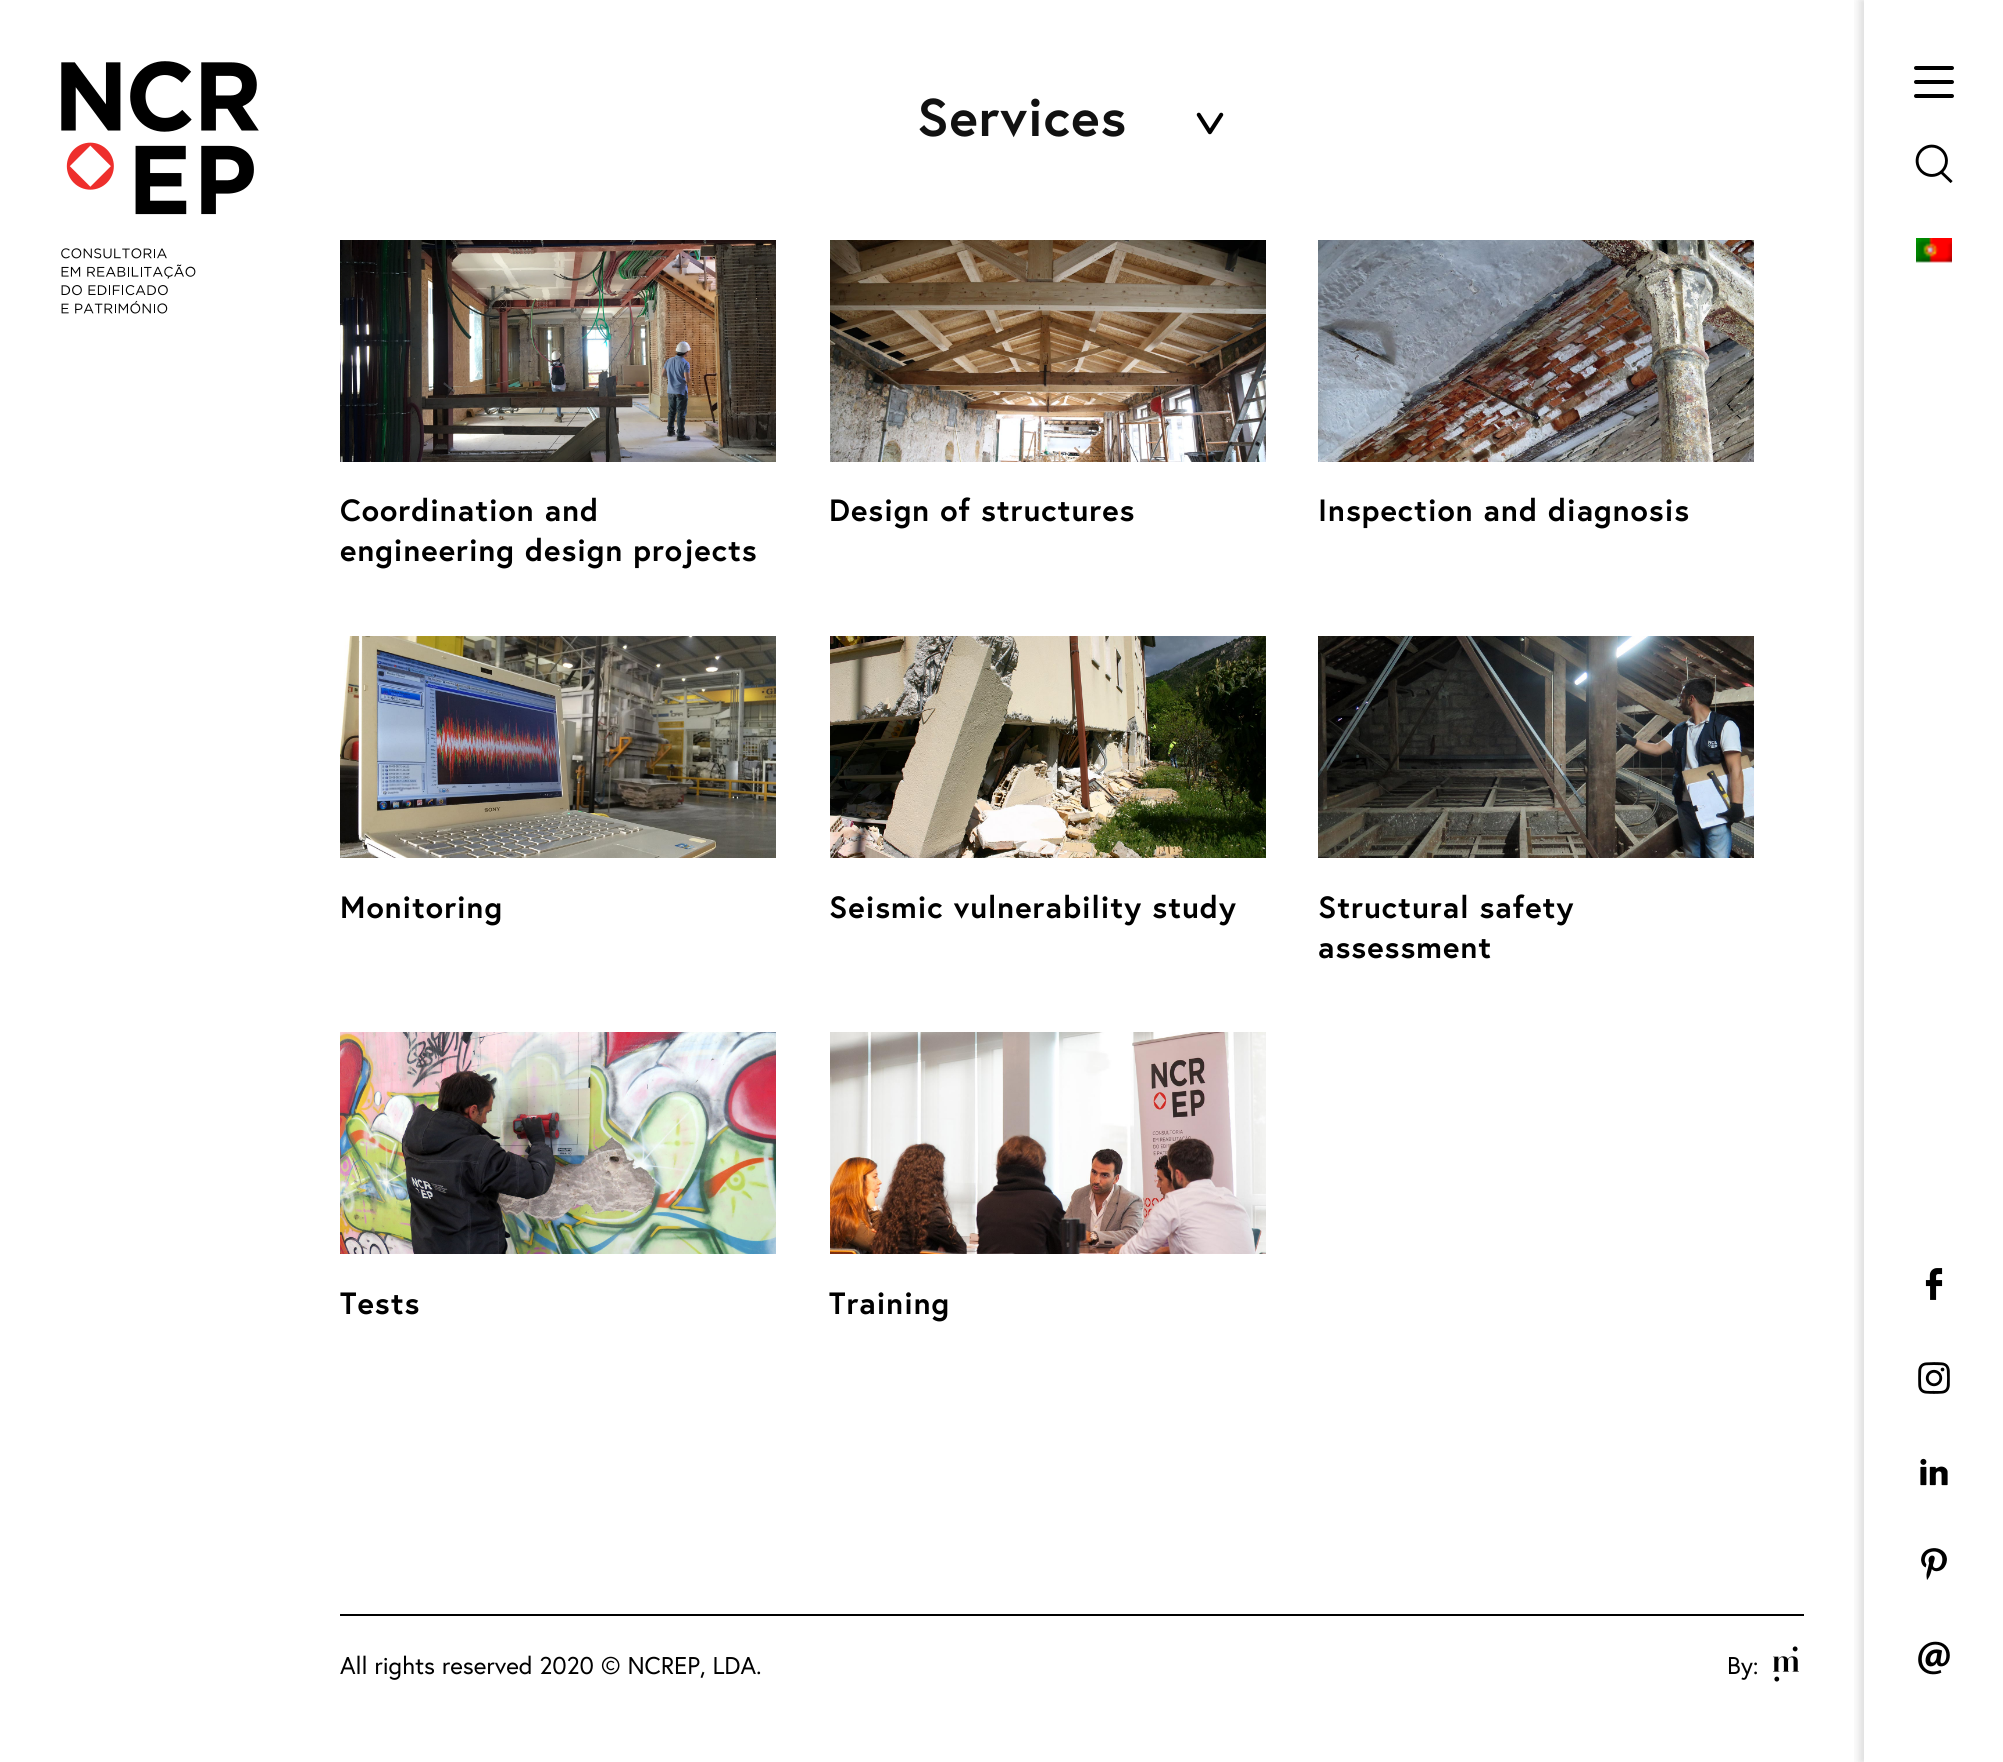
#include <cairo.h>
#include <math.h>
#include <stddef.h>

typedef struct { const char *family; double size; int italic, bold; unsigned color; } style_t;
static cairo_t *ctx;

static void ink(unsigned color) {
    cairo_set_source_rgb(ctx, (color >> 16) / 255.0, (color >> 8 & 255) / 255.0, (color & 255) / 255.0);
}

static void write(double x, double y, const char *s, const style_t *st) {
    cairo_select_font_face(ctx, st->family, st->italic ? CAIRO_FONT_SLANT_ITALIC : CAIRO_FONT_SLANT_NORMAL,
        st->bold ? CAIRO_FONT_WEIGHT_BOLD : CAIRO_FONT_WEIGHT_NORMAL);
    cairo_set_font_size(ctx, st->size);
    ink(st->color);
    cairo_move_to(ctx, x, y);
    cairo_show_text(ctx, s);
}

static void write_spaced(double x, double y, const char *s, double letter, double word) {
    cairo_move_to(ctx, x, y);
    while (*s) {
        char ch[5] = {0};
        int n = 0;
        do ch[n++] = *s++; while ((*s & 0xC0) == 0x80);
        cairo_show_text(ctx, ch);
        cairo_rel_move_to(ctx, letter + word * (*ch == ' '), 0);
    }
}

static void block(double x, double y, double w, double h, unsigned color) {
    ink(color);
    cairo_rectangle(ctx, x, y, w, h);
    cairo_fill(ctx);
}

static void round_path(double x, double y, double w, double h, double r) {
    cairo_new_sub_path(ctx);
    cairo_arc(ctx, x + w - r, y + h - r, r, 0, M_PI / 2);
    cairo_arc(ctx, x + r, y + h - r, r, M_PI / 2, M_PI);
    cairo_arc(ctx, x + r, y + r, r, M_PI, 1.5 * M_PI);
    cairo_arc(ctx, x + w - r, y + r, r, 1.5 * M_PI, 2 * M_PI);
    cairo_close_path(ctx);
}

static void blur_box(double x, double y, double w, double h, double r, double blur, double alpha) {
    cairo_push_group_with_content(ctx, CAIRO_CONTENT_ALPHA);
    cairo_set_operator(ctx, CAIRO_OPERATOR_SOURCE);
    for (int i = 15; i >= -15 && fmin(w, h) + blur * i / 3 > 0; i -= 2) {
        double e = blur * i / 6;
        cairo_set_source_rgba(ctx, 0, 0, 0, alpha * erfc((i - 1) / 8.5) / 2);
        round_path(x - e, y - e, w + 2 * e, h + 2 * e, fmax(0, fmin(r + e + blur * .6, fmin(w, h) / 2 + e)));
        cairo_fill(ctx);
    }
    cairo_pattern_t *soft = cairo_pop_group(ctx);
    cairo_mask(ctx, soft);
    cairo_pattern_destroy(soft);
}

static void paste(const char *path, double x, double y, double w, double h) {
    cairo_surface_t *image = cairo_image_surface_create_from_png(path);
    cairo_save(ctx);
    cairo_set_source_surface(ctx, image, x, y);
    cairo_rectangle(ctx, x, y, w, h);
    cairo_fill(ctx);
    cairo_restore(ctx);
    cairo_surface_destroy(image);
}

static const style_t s1 = {"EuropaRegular", 24.25, 0, 0, 0x000000};

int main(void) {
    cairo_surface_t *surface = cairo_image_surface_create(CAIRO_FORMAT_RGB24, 2003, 1762);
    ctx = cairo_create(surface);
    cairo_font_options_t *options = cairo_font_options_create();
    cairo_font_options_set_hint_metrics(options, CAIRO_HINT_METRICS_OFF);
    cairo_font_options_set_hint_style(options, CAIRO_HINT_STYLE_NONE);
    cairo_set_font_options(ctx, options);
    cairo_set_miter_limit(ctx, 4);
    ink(0xffffff);
    cairo_paint(ctx);
    paste("pic1.png", 61, 61, 198, 253);
    paste("pic2.png", 1196, 112, 28, 23);
    cairo_select_font_face(ctx, "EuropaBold", CAIRO_FONT_SLANT_NORMAL, CAIRO_FONT_WEIGHT_BOLD);
    cairo_set_font_size(ctx, 53);
    ink(0x111111);
    write_spaced(917, 136, "Services", 1, 0);
    paste("pic3.png", 340, 240, 436, 222);
    cairo_set_font_size(ctx, 30.75);
    ink(0x000000);
    write_spaced(340, 521, "Coordination and", 1, 0);
    write_spaced(340, 561, "engineering design projects", 1, 0);
    paste("pic4.png", 830, 240, 436, 222);
    write_spaced(829, 521, "Design of structures", 1, 0);
    paste("pic5.png", 1318, 240, 436, 222);
    write_spaced(1318, 521, "Inspection and diagnosis", 1, 0);
    paste("pic6.png", 340, 636, 436, 222);
    write_spaced(340, 918, "Monitoring", 1, 0);
    paste("pic7.png", 830, 636, 436, 222);
    write_spaced(829, 918, "Seismic vulnerability study", 1, 0);
    paste("pic8.png", 1318, 636, 436, 222);
    write_spaced(1318, 918, "Structural safety", 1, 0);
    write_spaced(1318, 958, "assessment", 1, 0);
    paste("pic9.png", 340, 1032, 436, 222);
    write_spaced(340, 1314, "Tests", 1, 0);
    paste("pic10.png", 830, 1032, 436, 222);
    write_spaced(829, 1314, "Training", 1, 0);
    cairo_save(ctx);
    cairo_rectangle(ctx, 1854, 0, 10, 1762);
    cairo_clip(ctx);
    ink(0x000000);
    blur_box(1860, 0, 140, 1762, 0, 5, 0.15);
    cairo_restore(ctx);
    round_path(1914, 66, 40, 4, 2);
    cairo_fill(ctx);
    round_path(1914, 80, 40, 4, 2);
    cairo_fill(ctx);
    round_path(1914, 94, 40, 4, 2);
    cairo_fill(ctx);
    paste("pic11.png", 1915, 144, 38, 39);
    paste("pic12.png", 1916, 238, 36, 25);
    paste("pic13.png", 1925, 1268, 18, 32);
    paste("pic14.png", 1918, 1362, 32, 32);
    paste("pic15.png", 1920, 1458, 28, 28);
    paste("pic16.png", 1921, 1548, 26, 32);
    paste("pic17.png", 1918, 1641, 32, 34);
    block(340, 1614, 1464, 2, 0x000000);
    write(340, 1674, "All rights reserved 2020 © NCREP, LDA.", &s1);
    write(1727, 1674, "By:", &s1);
    paste("pic18.png", 1773, 1646, 26, 36);
    cairo_surface_write_to_png(surface, "screenshot.png");
    cairo_font_options_destroy(options);
    cairo_destroy(ctx);
    cairo_surface_destroy(surface);
    return 0;
}
